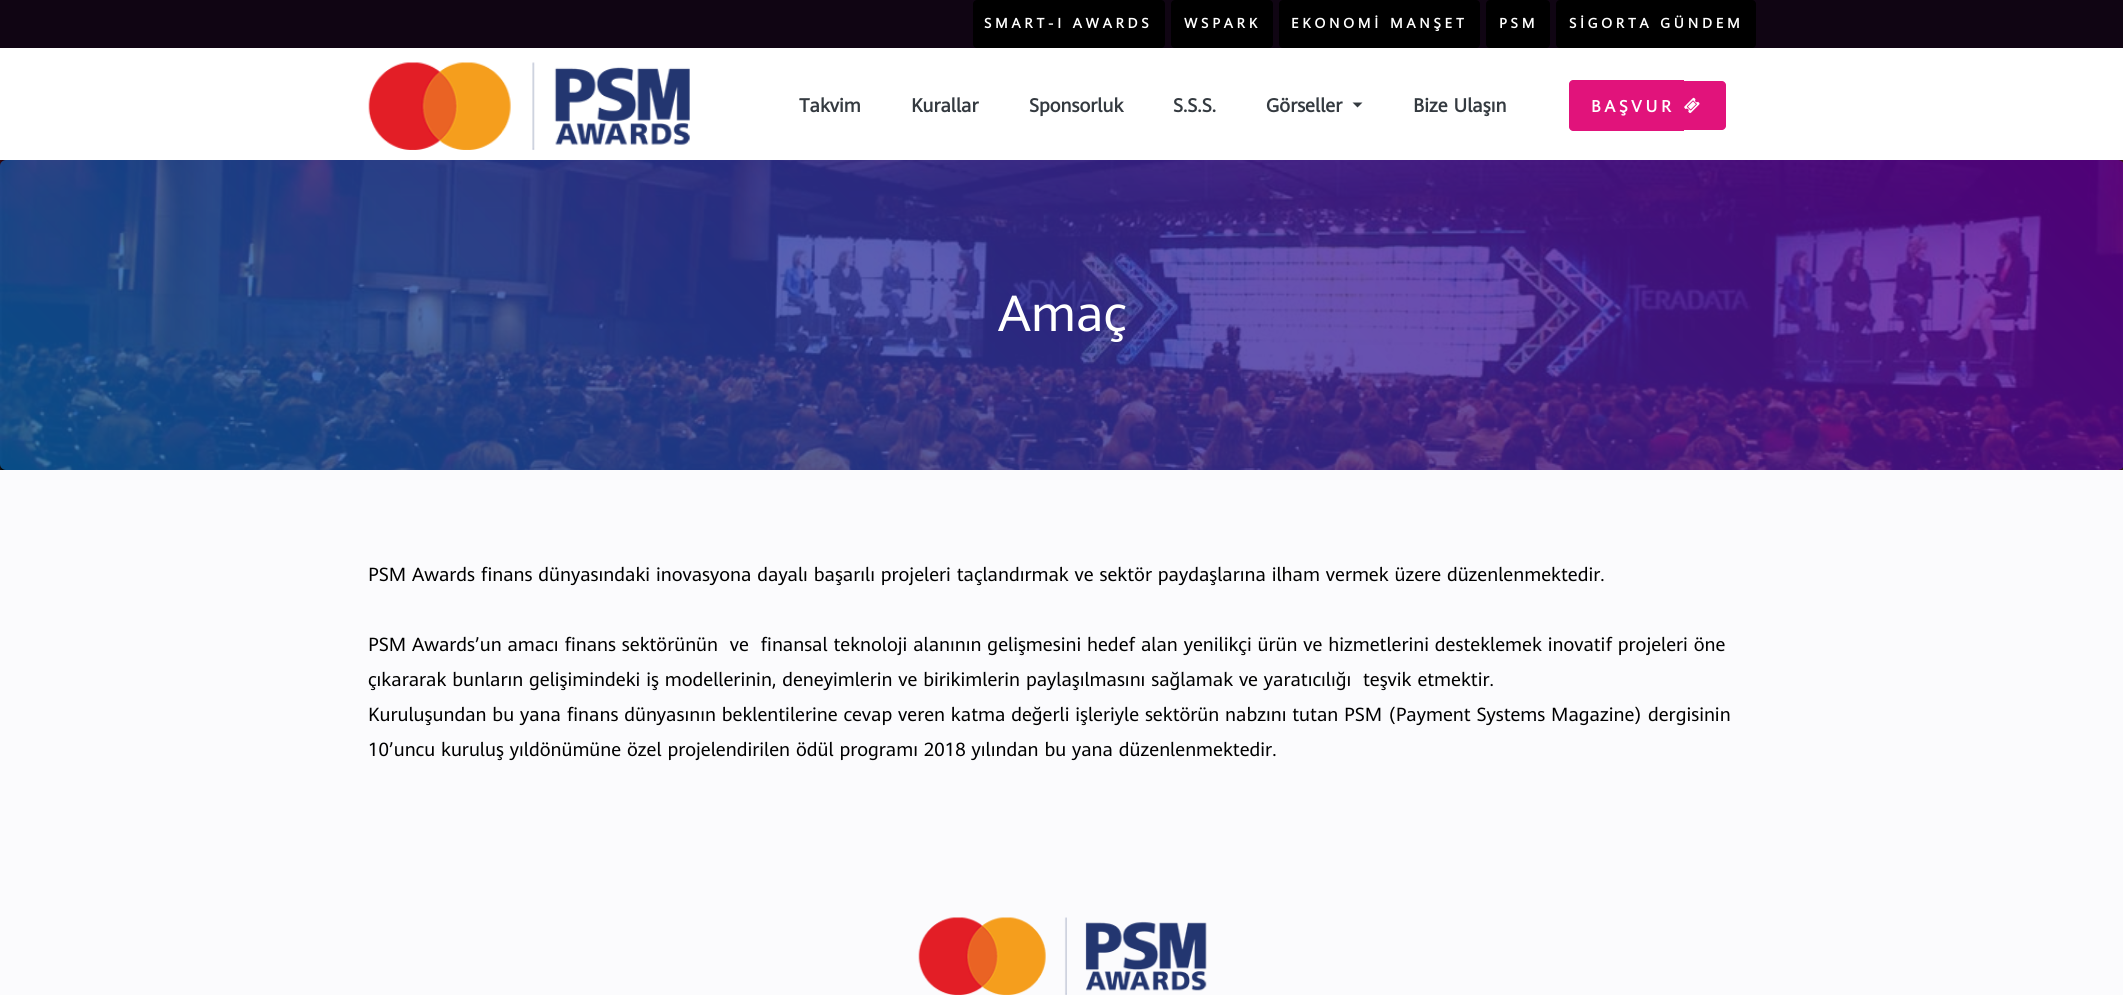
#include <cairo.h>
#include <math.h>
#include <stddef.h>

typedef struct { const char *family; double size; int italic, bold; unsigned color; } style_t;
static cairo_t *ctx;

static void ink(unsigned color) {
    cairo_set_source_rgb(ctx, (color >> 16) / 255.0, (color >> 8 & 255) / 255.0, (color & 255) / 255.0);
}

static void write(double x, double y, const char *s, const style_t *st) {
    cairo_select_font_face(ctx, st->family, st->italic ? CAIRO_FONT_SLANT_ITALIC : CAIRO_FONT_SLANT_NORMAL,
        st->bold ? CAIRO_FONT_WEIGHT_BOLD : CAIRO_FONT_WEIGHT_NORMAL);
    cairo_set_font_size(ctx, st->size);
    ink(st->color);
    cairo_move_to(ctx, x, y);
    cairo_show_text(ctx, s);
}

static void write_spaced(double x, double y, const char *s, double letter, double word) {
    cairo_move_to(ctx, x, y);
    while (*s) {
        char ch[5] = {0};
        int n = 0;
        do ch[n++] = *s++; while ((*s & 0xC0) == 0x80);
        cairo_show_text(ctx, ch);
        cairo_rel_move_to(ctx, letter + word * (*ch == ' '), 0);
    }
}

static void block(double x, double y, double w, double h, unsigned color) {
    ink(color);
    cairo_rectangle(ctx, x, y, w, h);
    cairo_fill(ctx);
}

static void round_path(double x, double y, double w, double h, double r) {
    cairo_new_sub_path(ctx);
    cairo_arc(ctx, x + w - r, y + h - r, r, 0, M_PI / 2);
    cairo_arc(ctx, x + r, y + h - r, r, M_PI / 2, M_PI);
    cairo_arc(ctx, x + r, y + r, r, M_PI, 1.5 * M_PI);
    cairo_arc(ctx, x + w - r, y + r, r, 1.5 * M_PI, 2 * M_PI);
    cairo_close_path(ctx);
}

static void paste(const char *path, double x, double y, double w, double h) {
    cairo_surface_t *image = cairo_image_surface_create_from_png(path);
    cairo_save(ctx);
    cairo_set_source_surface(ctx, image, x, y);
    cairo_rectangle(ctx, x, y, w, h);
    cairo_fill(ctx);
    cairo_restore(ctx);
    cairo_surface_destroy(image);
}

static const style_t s1 = {"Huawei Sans", 18.75, 0, 1, 0x343a40};
static const style_t s2 = {"Huawei Sans", 50, 0, 0, 0xffffff};
static const style_t s3 = {"Huawei Sans", 18.75, 0, 0, 0x000000};

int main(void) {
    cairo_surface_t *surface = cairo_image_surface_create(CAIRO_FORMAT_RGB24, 2123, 995);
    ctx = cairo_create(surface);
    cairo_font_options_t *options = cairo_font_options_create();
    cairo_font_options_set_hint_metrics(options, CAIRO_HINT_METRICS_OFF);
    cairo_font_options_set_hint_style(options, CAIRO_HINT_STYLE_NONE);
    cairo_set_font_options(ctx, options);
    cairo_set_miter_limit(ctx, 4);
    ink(0xffffff);
    cairo_paint(ctx);
    block(0, 0, 2123, 48, 0x100513);
    ink(0x000000);
    round_path(973, 0, 192, 48, 4);
    cairo_fill(ctx);
    cairo_select_font_face(ctx, "Huawei Sans", CAIRO_FONT_SLANT_NORMAL, CAIRO_FONT_WEIGHT_BOLD);
    cairo_set_font_size(ctx, 13.75);
    ink(0xffffff);
    write_spaced(984, 28, "SMART-I AWARDS", 3.75, 0);
    ink(0x000000);
    round_path(1171, 0, 102, 48, 4);
    cairo_fill(ctx);
    ink(0xffffff);
    write_spaced(1184, 28, "WSPARK", 3.75, 0);
    ink(0x000000);
    round_path(1279, 0, 201, 48, 4);
    cairo_fill(ctx);
    ink(0xffffff);
    write_spaced(1291, 28, "EKONOMİ MANŞET", 3.75, 0);
    ink(0x000000);
    round_path(1486, 0, 64, 48, 4);
    cairo_fill(ctx);
    ink(0xffffff);
    write_spaced(1499, 28, "PSM", 3.75, 0);
    ink(0x000000);
    round_path(1556, 0, 200, 48, 4);
    cairo_fill(ctx);
    ink(0xffffff);
    write_spaced(1569, 28, "SİGORTA GÜNDEM", 3.75, 0);
    paste("pic1.png", 368, 62, 322, 88);
    write(799, 112, "Takvim", &s1);
    write(911, 112, "Kurallar", &s1);
    write(1029, 112, "Sponsorluk", &s1);
    write(1173, 112, "S.S.S.", &s1);
    write(1266, 112, "Görseller", &s1);
    cairo_new_path(ctx);
    cairo_move_to(ctx, 1352.5, 102.5);
    cairo_line_to(ctx, 1362.5, 102.5);
    cairo_line_to(ctx, 1357.5, 107.5);
    cairo_close_path(ctx);
    cairo_fill(ctx);
    write(1413, 112, "Bize Ulaşın", &s1);
    ink(0xe1137b);
    cairo_new_path(ctx);
    cairo_move_to(ctx, 1573, 80);
    cairo_line_to(ctx, 1684, 80);
    cairo_line_to(ctx, 1684, 131);
    cairo_line_to(ctx, 1573, 131);
    cairo_curve_to(ctx, 1571, 131, 1569, 129, 1569, 127);
    cairo_line_to(ctx, 1569, 84);
    cairo_curve_to(ctx, 1569, 82, 1571, 80, 1573, 80);
    cairo_close_path(ctx);
    cairo_fill(ctx);
    cairo_new_path(ctx);
    cairo_move_to(ctx, 1684, 81);
    cairo_line_to(ctx, 1722, 81);
    cairo_curve_to(ctx, 1724, 81, 1726, 83, 1726, 85);
    cairo_line_to(ctx, 1726, 126);
    cairo_curve_to(ctx, 1726, 128, 1724, 130, 1722, 130);
    cairo_line_to(ctx, 1684, 130);
    cairo_close_path(ctx);
    cairo_fill(ctx);
    cairo_set_font_size(ctx, 16.25);
    ink(0xffffff);
    write_spaced(1591, 112, "BAŞVUR", 3.75, 0);
    paste("pic2.png", 1684, 97, 16, 17);
    paste("pic3.png", 0, 160, 2123, 310);
    write(998, 331, "Amaç", &s2);
    block(0, 470, 2123, 525, 0xfbfbfd);
    paste("pic4.png", 918, 917, 289, 78);
    write(368, 581, "PSM Awards finans dünyasındaki inovasyona dayalı başarılı projeleri taçlandırmak ve sektör paydaşlarına ilham vermek üzere düzenlenmektedir.", &s3);
    write(368, 651, "PSM Awards’un amacı finans sektörünün  ve  finansal teknoloji alanının gelişmesini hedef alan yenilikçi ürün ve hizmetlerini desteklemek inovatif projeleri öne", &s3);
    write(368, 686, "çıkararak bunların gelişimindeki iş modellerinin, deneyimlerin ve birikimlerin paylaşılmasını sağlamak ve yaratıcılığı  teşvik etmektir.", &s3);
    write(368, 721, "Kuruluşundan bu yana finans dünyasının beklentilerine cevap veren katma değerli işleriyle sektörün nabzını tutan PSM (Payment Systems Magazine) dergisinin", &s3);
    write(368, 756, "10’uncu kuruluş yıldönümüne özel projelendirilen ödül programı 2018 yılından bu yana düzenlenmektedir.", &s3);
    cairo_surface_write_to_png(surface, "screenshot.png");
    cairo_font_options_destroy(options);
    cairo_destroy(ctx);
    cairo_surface_destroy(surface);
    return 0;
}
